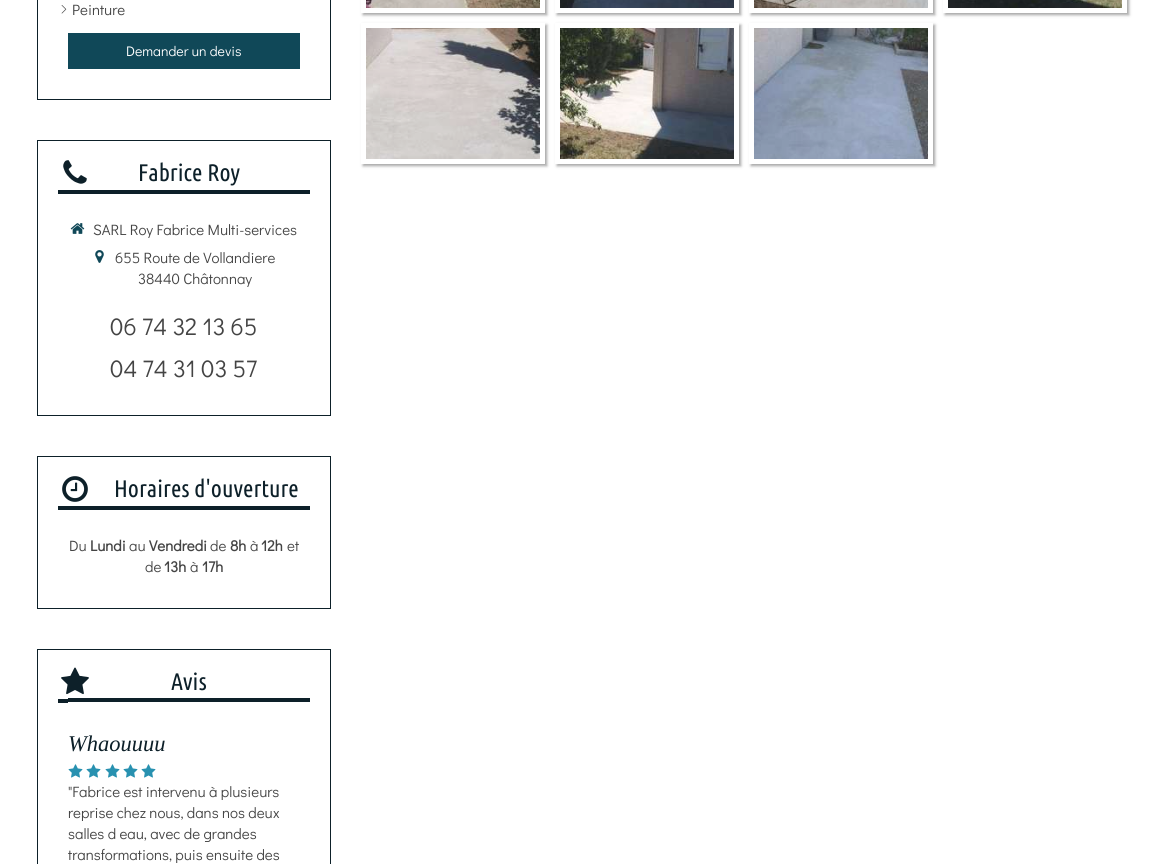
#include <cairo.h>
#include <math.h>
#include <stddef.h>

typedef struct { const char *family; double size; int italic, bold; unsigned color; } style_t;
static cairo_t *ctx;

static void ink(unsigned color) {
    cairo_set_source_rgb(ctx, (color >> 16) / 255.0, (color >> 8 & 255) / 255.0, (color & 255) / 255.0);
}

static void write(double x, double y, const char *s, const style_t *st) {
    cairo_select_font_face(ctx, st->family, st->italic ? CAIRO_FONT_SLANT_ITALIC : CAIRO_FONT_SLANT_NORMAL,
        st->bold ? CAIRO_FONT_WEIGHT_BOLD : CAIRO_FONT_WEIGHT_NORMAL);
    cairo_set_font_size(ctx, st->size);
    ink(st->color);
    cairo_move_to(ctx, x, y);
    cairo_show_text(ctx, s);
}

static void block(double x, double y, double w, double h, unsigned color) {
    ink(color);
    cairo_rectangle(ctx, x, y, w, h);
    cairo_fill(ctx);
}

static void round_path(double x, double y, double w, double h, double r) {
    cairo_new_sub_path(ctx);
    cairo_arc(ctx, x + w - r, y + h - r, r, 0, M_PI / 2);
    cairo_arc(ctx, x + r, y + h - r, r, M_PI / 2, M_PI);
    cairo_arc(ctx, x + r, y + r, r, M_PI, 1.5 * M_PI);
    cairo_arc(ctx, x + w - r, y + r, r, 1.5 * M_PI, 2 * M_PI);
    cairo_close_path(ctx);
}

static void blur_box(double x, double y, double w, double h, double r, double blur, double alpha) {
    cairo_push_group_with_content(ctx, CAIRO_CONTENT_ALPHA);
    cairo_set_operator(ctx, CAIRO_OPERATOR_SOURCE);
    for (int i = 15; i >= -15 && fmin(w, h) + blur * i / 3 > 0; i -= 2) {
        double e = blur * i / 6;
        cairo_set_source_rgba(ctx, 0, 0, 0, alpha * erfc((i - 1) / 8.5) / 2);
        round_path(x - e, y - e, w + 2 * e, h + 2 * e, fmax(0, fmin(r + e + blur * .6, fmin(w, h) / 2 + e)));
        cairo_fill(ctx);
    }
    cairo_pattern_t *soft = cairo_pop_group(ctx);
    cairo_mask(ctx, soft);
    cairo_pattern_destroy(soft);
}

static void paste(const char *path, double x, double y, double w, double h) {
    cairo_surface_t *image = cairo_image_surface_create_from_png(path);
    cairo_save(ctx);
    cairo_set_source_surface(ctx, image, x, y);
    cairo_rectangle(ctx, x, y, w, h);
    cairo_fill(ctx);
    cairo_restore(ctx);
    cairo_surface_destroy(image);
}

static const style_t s1 = {"Didact Gothic", 15, 0, 0, 0x444444};
static const style_t s2 = {"Didact Gothic", 14, 0, 0, 0xffffff};
static const style_t s3 = {"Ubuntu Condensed", 24, 0, 0, 0x0d2029};
static const style_t s4 = {"Didact Gothic", 24, 0, 0, 0x444444};
static const style_t s5 = {"Didact Gothic", 15, 0, 1, 0x444444};
static const style_t s6 = {"Liberation Serif", 22.5, 1, 0, 0x0d2029};

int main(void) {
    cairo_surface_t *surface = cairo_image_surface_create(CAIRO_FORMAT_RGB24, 1174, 864);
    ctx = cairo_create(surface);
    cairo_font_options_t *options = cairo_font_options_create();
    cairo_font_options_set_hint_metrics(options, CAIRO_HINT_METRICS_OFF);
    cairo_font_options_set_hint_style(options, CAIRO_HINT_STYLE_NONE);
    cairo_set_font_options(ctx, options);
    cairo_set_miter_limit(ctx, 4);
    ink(0xffffff);
    cairo_paint(ctx);
    cairo_rectangle(ctx, 37.5, -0.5, 293, 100);
    ink(0x0d2029);
    cairo_set_line_width(ctx, 1);
    cairo_stroke(ctx);
    paste("pic1.png", 61, 5, 6, 9);
    write(72, 15, "Peinture", &s1);
    block(68, 33, 232, 36, 0x104858);
    write(126, 56, "Demander un devis", &s2);
    cairo_rectangle(ctx, 37.5, 140.5, 293, 275);
    ink(0x0d2029);
    cairo_stroke(ctx);
    block(58, 190, 252, 4, 0x0d2029);
    paste("pic2.png", 63, 160, 24, 24);
    write(138, 181, "Fabrice Roy", &s3);
    paste("pic3.png", 70, 223, 15, 11);
    write(93, 235, "SARL Roy Fabrice Multi-services", &s1);
    paste("pic4.png", 95, 250, 9, 13);
    write(115, 263, "655 Route de Vollandiere", &s1);
    write(138, 284, "38440 Châtonnay", &s1);
    write(110, 335, "06 74 32 13 65", &s4);
    write(110, 377, "04 74 31 03 57", &s4);
    cairo_rectangle(ctx, 37.5, 456.5, 293, 152);
    ink(0x0d2029);
    cairo_stroke(ctx);
    block(58, 506, 252, 4, 0x0d2029);
    paste("pic5.png", 62, 476, 26, 26);
    write(114, 497, "Horaires d'ouverture", &s3);
    write(69, 551, "Du", &s1);
    write(90, 551, "Lundi", &s5);
    write(129, 551, "au", &s1);
    write(149, 551, "Vendredi", &s5);
    write(210, 551, "de", &s1);
    write(230, 551, "8h", &s5);
    write(250, 551, "à", &s1);
    write(261, 551, "12h", &s5);
    write(287, 551, "et", &s1);
    write(145, 572, "de", &s1);
    write(164, 572, "13h", &s5);
    write(190, 572, "à", &s1);
    write(202, 572, "17h", &s5);
    cairo_rectangle(ctx, 37.5, 649.5, 293, 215);
    ink(0x0d2029);
    cairo_stroke(ctx);
    block(58, 699, 10, 4, 0x0d2029);
    paste("pic6.png", 61, 667, 28, 28);
    block(68, 698, 242, 4, 0x0d2029);
    write(171, 690, "Avis", &s3);
    write(68, 751, "Whaouuuu", &s6);
    paste("pic7.png", 68, 764, 15, 14);
    paste("pic7.png", 86, 764, 15, 14);
    paste("pic7.png", 105, 764, 15, 14);
    paste("pic7.png", 123, 764, 15, 14);
    paste("pic7.png", 141, 764, 15, 14);
    write(68, 797, "\"Fabrice est intervenu à plusieurs", &s1);
    write(68, 818, "reprise chez nous, dans nos deux", &s1);
    write(68, 839, "salles d eau, avec de grandes", &s1);
    write(68, 860, "transformations, puis ensuite des", &s1);
    cairo_save(ctx);
    cairo_set_fill_rule(ctx, CAIRO_FILL_RULE_EVEN_ODD);
    cairo_new_path(ctx);
    cairo_move_to(ctx, 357, 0);
    cairo_line_to(ctx, 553, 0);
    cairo_line_to(ctx, 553, 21);
    cairo_line_to(ctx, 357, 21);
    cairo_close_path(ctx);
    cairo_move_to(ctx, 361, -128);
    cairo_line_to(ctx, 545, -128);
    cairo_line_to(ctx, 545, 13);
    cairo_line_to(ctx, 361, 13);
    cairo_close_path(ctx);
    cairo_clip(ctx);
    ink(0x1a1a1a);
    blur_box(363, -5, 184, 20, 0, 1.5, 0.4);
    cairo_restore(ctx);
    paste("pic8.png", 366, 0, 174, 8);
    cairo_save(ctx);
    cairo_set_fill_rule(ctx, CAIRO_FILL_RULE_EVEN_ODD);
    cairo_new_path(ctx);
    cairo_move_to(ctx, 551, 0);
    cairo_line_to(ctx, 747, 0);
    cairo_line_to(ctx, 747, 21);
    cairo_line_to(ctx, 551, 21);
    cairo_close_path(ctx);
    cairo_move_to(ctx, 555, -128);
    cairo_line_to(ctx, 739, -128);
    cairo_line_to(ctx, 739, 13);
    cairo_line_to(ctx, 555, 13);
    cairo_close_path(ctx);
    cairo_clip(ctx);
    ink(0x1a1a1a);
    blur_box(557, -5, 184, 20, 0, 1.5, 0.4);
    cairo_restore(ctx);
    paste("pic9.png", 560, 0, 174, 8);
    cairo_save(ctx);
    cairo_set_fill_rule(ctx, CAIRO_FILL_RULE_EVEN_ODD);
    cairo_new_path(ctx);
    cairo_move_to(ctx, 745, 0);
    cairo_line_to(ctx, 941, 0);
    cairo_line_to(ctx, 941, 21);
    cairo_line_to(ctx, 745, 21);
    cairo_close_path(ctx);
    cairo_move_to(ctx, 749, -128);
    cairo_line_to(ctx, 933, -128);
    cairo_line_to(ctx, 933, 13);
    cairo_line_to(ctx, 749, 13);
    cairo_close_path(ctx);
    cairo_clip(ctx);
    ink(0x1a1a1a);
    blur_box(751, -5, 184, 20, 0, 1.5, 0.4);
    cairo_restore(ctx);
    paste("pic10.png", 754, 0, 174, 8);
    cairo_save(ctx);
    cairo_set_fill_rule(ctx, CAIRO_FILL_RULE_EVEN_ODD);
    cairo_new_path(ctx);
    cairo_move_to(ctx, 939, 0);
    cairo_line_to(ctx, 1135, 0);
    cairo_line_to(ctx, 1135, 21);
    cairo_line_to(ctx, 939, 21);
    cairo_close_path(ctx);
    cairo_move_to(ctx, 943, -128);
    cairo_line_to(ctx, 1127, -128);
    cairo_line_to(ctx, 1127, 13);
    cairo_line_to(ctx, 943, 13);
    cairo_close_path(ctx);
    cairo_clip(ctx);
    ink(0x1a1a1a);
    blur_box(945, -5, 184, 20, 0, 1.5, 0.4);
    cairo_restore(ctx);
    paste("pic11.png", 948, 0, 174, 8);
    cairo_save(ctx);
    cairo_set_fill_rule(ctx, CAIRO_FILL_RULE_EVEN_ODD);
    cairo_new_path(ctx);
    cairo_move_to(ctx, 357, 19);
    cairo_line_to(ctx, 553, 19);
    cairo_line_to(ctx, 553, 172);
    cairo_line_to(ctx, 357, 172);
    cairo_close_path(ctx);
    cairo_move_to(ctx, 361, 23);
    cairo_line_to(ctx, 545, 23);
    cairo_line_to(ctx, 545, 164);
    cairo_line_to(ctx, 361, 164);
    cairo_close_path(ctx);
    cairo_clip(ctx);
    ink(0x1a1a1a);
    blur_box(363, 25, 184, 141, 0, 1.5, 0.4);
    cairo_restore(ctx);
    paste("pic12.png", 366, 28, 174, 131);
    cairo_save(ctx);
    cairo_set_fill_rule(ctx, CAIRO_FILL_RULE_EVEN_ODD);
    cairo_new_path(ctx);
    cairo_move_to(ctx, 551, 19);
    cairo_line_to(ctx, 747, 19);
    cairo_line_to(ctx, 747, 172);
    cairo_line_to(ctx, 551, 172);
    cairo_close_path(ctx);
    cairo_move_to(ctx, 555, 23);
    cairo_line_to(ctx, 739, 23);
    cairo_line_to(ctx, 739, 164);
    cairo_line_to(ctx, 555, 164);
    cairo_close_path(ctx);
    cairo_clip(ctx);
    ink(0x1a1a1a);
    blur_box(557, 25, 184, 141, 0, 1.5, 0.4);
    cairo_restore(ctx);
    paste("pic13.png", 560, 28, 174, 131);
    cairo_save(ctx);
    cairo_set_fill_rule(ctx, CAIRO_FILL_RULE_EVEN_ODD);
    cairo_new_path(ctx);
    cairo_move_to(ctx, 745, 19);
    cairo_line_to(ctx, 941, 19);
    cairo_line_to(ctx, 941, 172);
    cairo_line_to(ctx, 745, 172);
    cairo_close_path(ctx);
    cairo_move_to(ctx, 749, 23);
    cairo_line_to(ctx, 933, 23);
    cairo_line_to(ctx, 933, 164);
    cairo_line_to(ctx, 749, 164);
    cairo_close_path(ctx);
    cairo_clip(ctx);
    ink(0x1a1a1a);
    blur_box(751, 25, 184, 141, 0, 1.5, 0.4);
    cairo_restore(ctx);
    paste("pic14.png", 754, 28, 174, 131);
    cairo_surface_write_to_png(surface, "screenshot.png");
    cairo_font_options_destroy(options);
    cairo_destroy(ctx);
    cairo_surface_destroy(surface);
    return 0;
}
